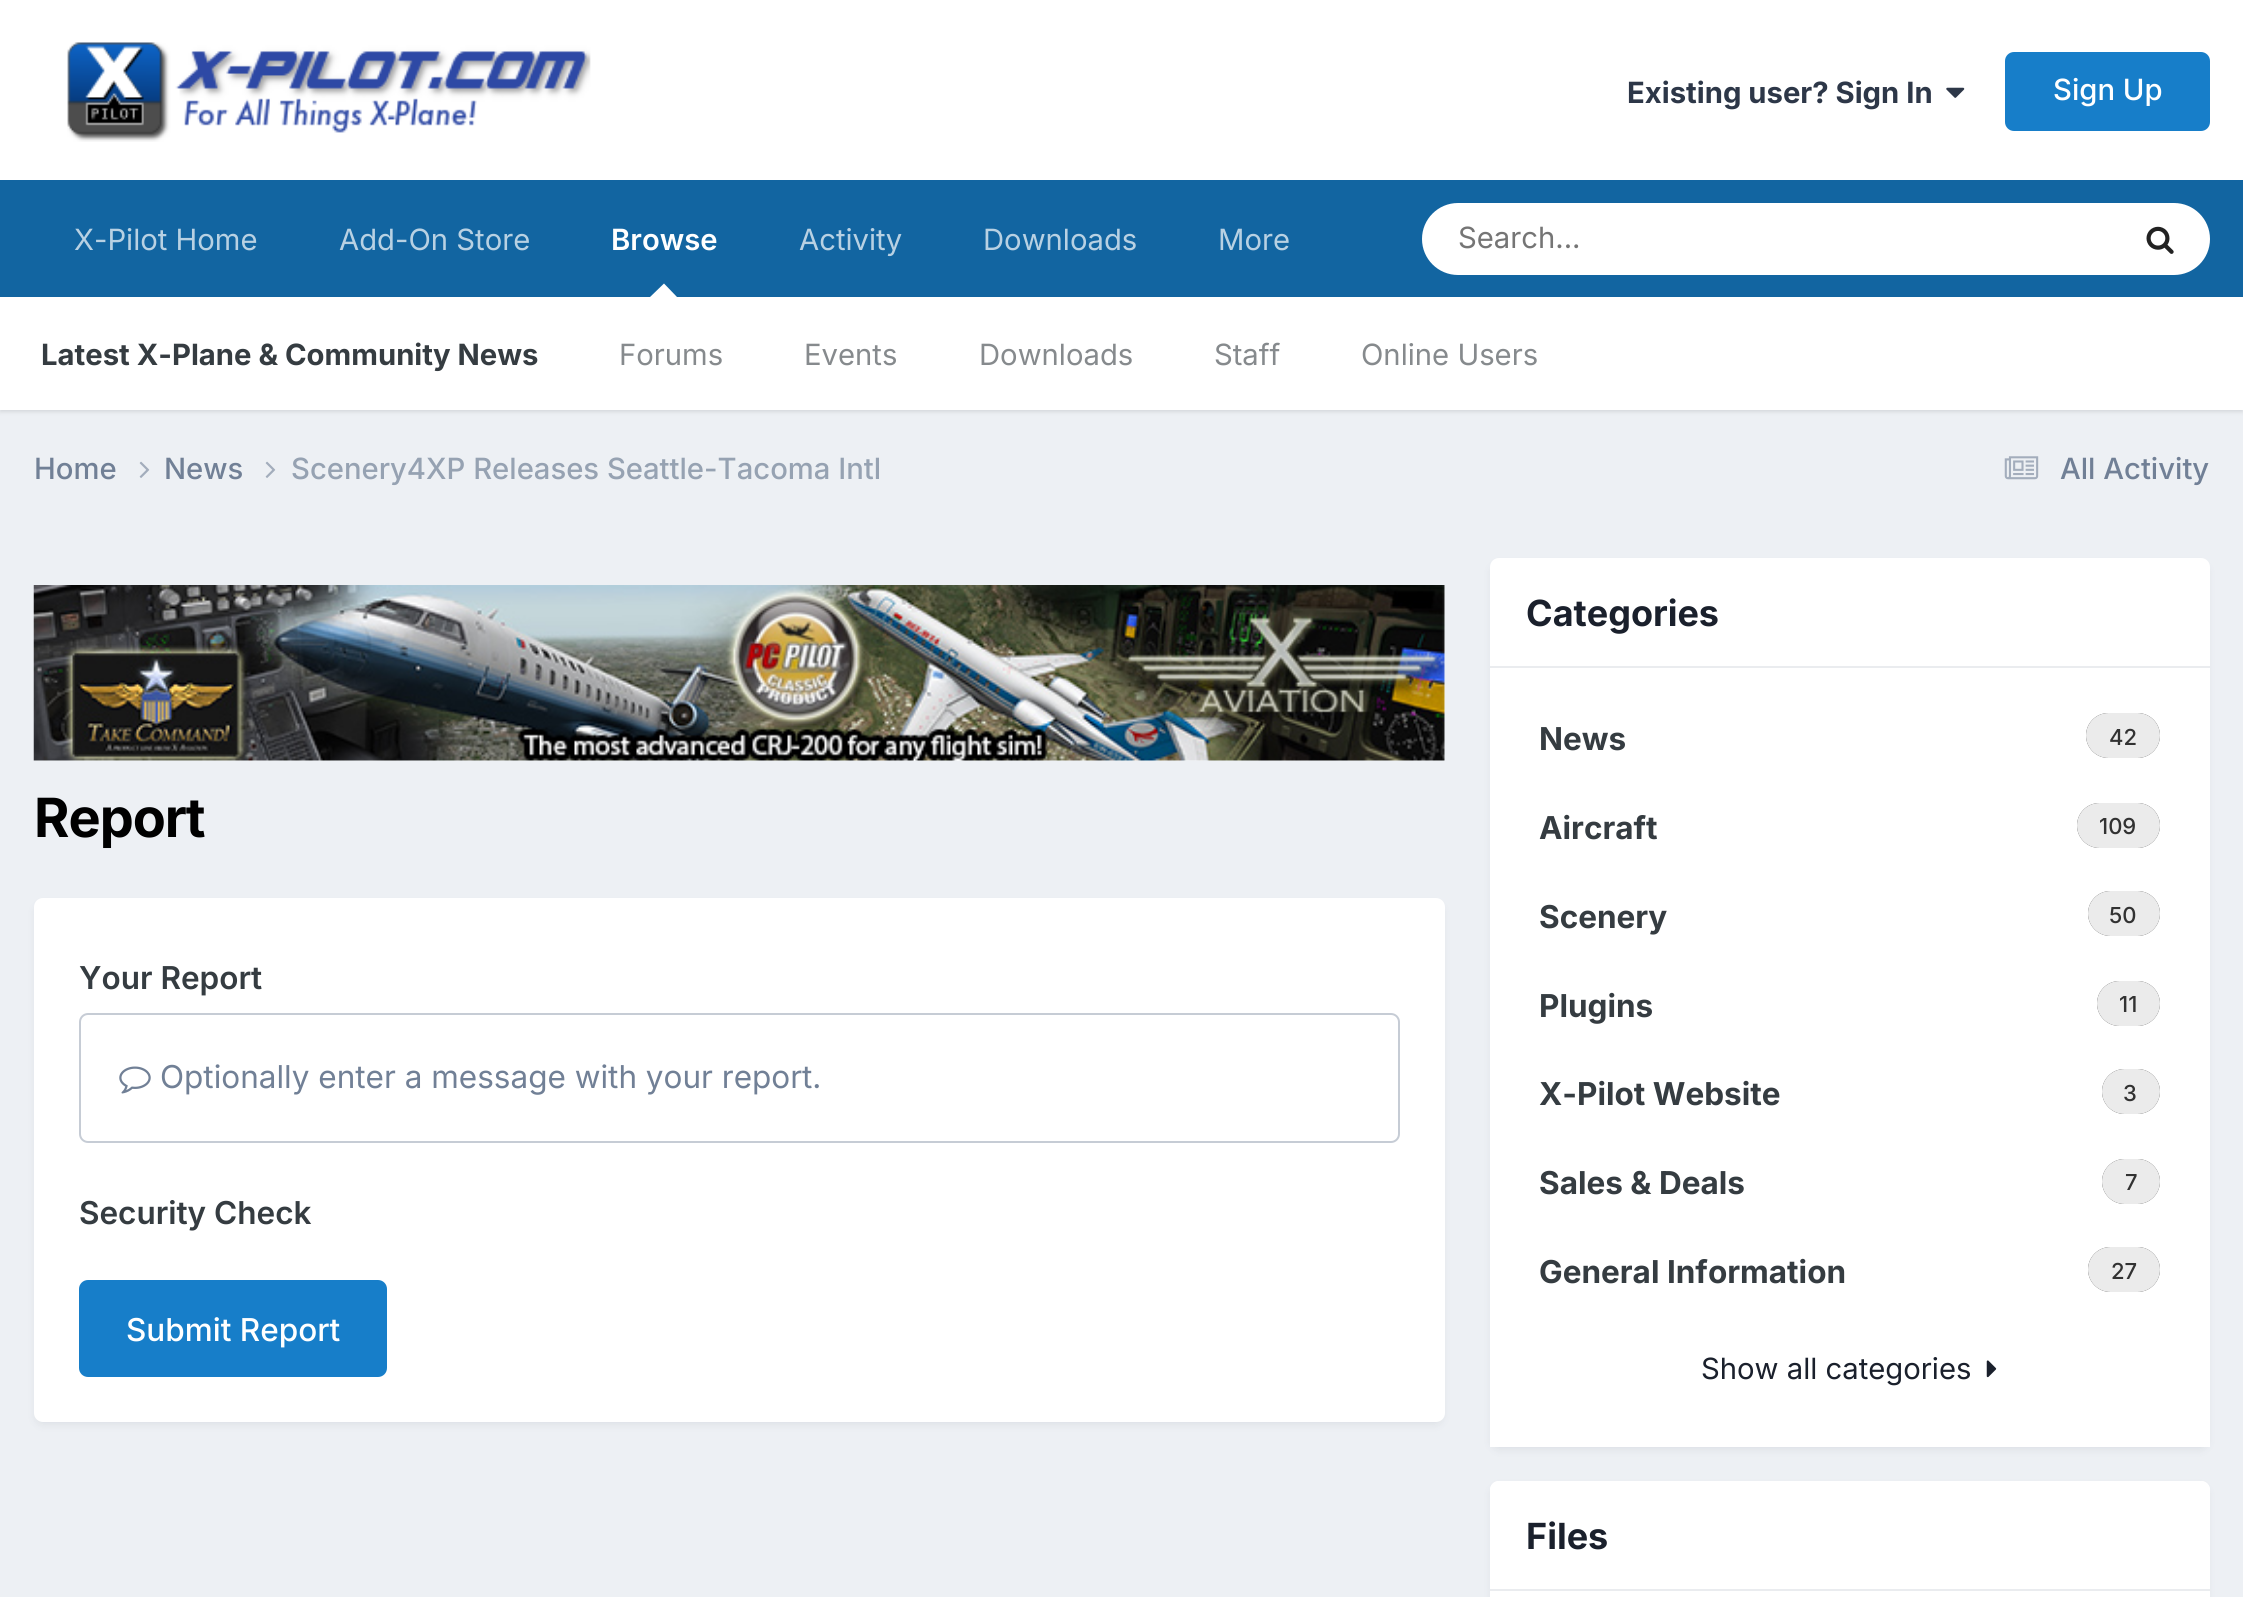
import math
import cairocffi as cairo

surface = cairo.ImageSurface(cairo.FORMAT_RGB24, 2243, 1597)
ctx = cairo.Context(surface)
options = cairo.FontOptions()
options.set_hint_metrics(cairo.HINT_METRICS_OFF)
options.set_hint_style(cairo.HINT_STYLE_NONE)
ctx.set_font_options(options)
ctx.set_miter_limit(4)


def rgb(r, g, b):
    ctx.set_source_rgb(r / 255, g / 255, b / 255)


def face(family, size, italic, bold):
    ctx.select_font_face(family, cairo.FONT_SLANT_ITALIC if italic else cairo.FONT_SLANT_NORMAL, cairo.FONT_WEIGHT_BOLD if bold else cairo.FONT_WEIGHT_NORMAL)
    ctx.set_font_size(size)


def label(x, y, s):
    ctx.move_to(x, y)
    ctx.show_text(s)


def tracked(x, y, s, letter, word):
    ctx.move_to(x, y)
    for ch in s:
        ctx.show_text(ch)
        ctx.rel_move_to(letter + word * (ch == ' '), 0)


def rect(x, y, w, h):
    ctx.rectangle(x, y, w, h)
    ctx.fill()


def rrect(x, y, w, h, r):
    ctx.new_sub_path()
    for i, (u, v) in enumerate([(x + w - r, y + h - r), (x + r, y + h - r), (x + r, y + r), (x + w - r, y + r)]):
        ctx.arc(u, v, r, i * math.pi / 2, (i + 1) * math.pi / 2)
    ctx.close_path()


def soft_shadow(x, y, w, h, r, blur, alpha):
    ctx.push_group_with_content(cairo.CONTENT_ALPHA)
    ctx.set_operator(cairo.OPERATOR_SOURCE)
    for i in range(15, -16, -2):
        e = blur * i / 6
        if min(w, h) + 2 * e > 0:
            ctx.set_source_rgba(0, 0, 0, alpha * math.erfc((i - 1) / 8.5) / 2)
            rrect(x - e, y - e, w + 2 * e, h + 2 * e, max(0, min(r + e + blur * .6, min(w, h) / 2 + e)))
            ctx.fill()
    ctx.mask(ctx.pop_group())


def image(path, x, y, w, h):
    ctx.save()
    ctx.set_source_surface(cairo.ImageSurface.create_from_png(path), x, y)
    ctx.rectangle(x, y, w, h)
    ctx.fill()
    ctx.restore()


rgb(237, 240, 244)
ctx.paint()
rgb(255, 255, 255)
rect(0, 0, 2243, 180)
image('image0.png', 67, 42, 524, 100)
face('Inter', 29.25, 0, 1)
rgb(45, 55, 72)
label(1627, 103, 'Existing user? Sign In')
image('image1.png', 1946, 87, 19, 11)
rgb(23, 126, 201)
rrect(2005, 52, 205, 79, 9)
ctx.fill()
face('Inter Medium', 29.25, 0, 0)
rgb(255, 255, 255)
label(2053, 100, 'Sign Up')
rgb(18, 101, 161)
rect(0, 180, 2243, 117)
rgb(255, 255, 255)
rrect(1422, 203, 788, 72, 36)
ctx.fill()
face('Inter', 29.25, 0, 0)
rgb(117, 117, 117)
label(1458, 248, 'Search...')
image('image2.png', 2146, 226, 28, 28)
face('Inter SemiBold', 29.25, 0, 0)
rgb(255, 255, 255)
label(611, 250, 'Browse')
rgb(0, 0, 0)
soft_shadow(0, 299, 2243, 113, 0, 2, 0.1)
rgb(255, 255, 255)
ctx.new_path()
ctx.move_to(677, 297)
ctx.line_to(650, 297)
ctx.line_to(664, 283.5)
ctx.close_path()
ctx.fill()
rect(0, 297, 2243, 113)
face('Inter', 29.25, 0, 1)
rgb(53, 60, 65)
label(41, 365, 'Latest X-Plane & Community News')
face('Inter', 29.25, 0, 0)
rgb(134, 138, 141)
label(619, 365, 'Forums')
label(804, 365, 'Events')
label(979, 365, 'Downloads')
label(1214, 365, 'Staff')
label(1361, 365, 'Online Users')
rgb(184, 209, 227)
label(74, 250, 'X-Pilot Home')
label(339, 250, 'Add-On Store')
label(799, 250, 'Activity')
label(983, 250, 'Downloads')
label(1218, 250, 'More')
face('Inter Medium', 29.25, 0, 0)
rgb(113, 128, 150)
label(34, 479, 'Home')
image('image3.png', 139, 461, 11, 17)
label(164, 479, 'News')
image('image3.png', 265, 461, 11, 17)
rgb(150, 162, 178)
label(291, 479, 'Scenery4XP Releases Seattle-Tacoma Intl')
image('image4.png', 2004, 456, 35, 24)
rgb(113, 128, 150)
label(2060, 479, 'All Activity')
rgb(247, 250, 252)
rect(34, 585, 1411, 176)
image('image5.png', 33, 585, 1412, 176)
face('Inter', 54, 0, 1)
rgb(0, 0, 0)
tracked(34, 837, 'Report', -1, 0)
rgb(45, 55, 72)
soft_shadow(36, 905, 1406, 519, 7, 4.5, 0.1)
rgb(255, 255, 255)
rrect(34, 898, 1411, 524, 9)
ctx.fill()
face('Inter SemiBold', 31.5, 0, 0)
rgb(53, 60, 65)
label(79, 989, 'Your Report')
rrect(80, 1014, 1319, 128, 8)
rgb(198, 204, 213)
ctx.stroke()
image('image6.png', 119, 1066, 32, 28)
face('Inter', 31.5, 0, 0)
rgb(113, 128, 150)
label(160, 1088, 'Optionally enter a message with your report.')
face('Inter SemiBold', 31.5, 0, 0)
rgb(53, 60, 65)
label(79, 1224, 'Security Check')
rgb(23, 126, 201)
rrect(79, 1280, 308, 97, 9)
ctx.fill()
face('Inter Medium', 31.5, 0, 0)
rgb(255, 255, 255)
label(126, 1341, 'Submit Report')
rgb(45, 55, 72)
soft_shadow(1492, 565, 715, 884, 7, 4.5, 0.1)
rgb(255, 255, 255)
ctx.new_path()
ctx.move_to(1499, 558)
ctx.line_to(2201, 558)
ctx.curve_to(2206, 558, 2210, 562, 2210, 567)
ctx.line_to(2210, 668)
ctx.line_to(1490, 668)
ctx.line_to(1490, 567)
ctx.curve_to(1490, 562, 1494, 558, 1499, 558)
ctx.close_path()
ctx.fill()
rgb(234, 236, 239)
rect(1490, 666, 720, 2)
face('Inter', 36, 0, 1)
rgb(26, 32, 44)
label(1526, 626, 'Categories')
rgb(255, 255, 255)
rect(1490, 668, 720, 779)
face('Inter', 31.5, 0, 1)
rgb(53, 60, 65)
label(1539, 750, 'News')
rgb(50, 50, 50)
rrect(2086, 713, 74, 45, 22.5)
ctx.fill()
ctx.set_source_rgba(1, 1, 1, 0.9)
rrect(2086, 713, 74, 45, 22.5)
ctx.fill()
face('Inter Medium', 22, 0, 0)
rgb(50, 50, 50)
label(2109, 745, '42')
face('Inter', 31.5, 0, 1)
rgb(53, 60, 65)
label(1539, 839, 'Aircraft')
rgb(50, 50, 50)
rrect(2077, 803, 83, 45, 22.5)
ctx.fill()
ctx.set_source_rgba(1, 1, 1, 0.9)
rrect(2077, 803, 83, 45, 22.5)
ctx.fill()
face('Inter Medium', 22, 0, 0)
rgb(50, 50, 50)
label(2099, 834, '109')
face('Inter', 31.5, 0, 1)
rgb(53, 60, 65)
label(1539, 928, 'Scenery')
rgb(50, 50, 50)
rrect(2088, 891, 72, 45, 22.5)
ctx.fill()
ctx.set_source_rgba(1, 1, 1, 0.9)
rrect(2088, 891, 72, 45, 22.5)
ctx.fill()
face('Inter Medium', 22, 0, 0)
rgb(50, 50, 50)
label(2109, 923, '50')
face('Inter', 31.5, 0, 1)
rgb(53, 60, 65)
label(1539, 1017, 'Plugins')
rgb(50, 50, 50)
rrect(2097, 981, 63, 45, 22.5)
ctx.fill()
ctx.set_source_rgba(1, 1, 1, 0.9)
rrect(2097, 981, 63, 45, 22.5)
ctx.fill()
face('Inter Medium', 22, 0, 0)
rgb(50, 50, 50)
label(2119, 1012, '11')
face('Inter', 31.5, 0, 1)
rgb(53, 60, 65)
label(1539, 1105, 'X-Pilot Website')
rgb(50, 50, 50)
rrect(2102, 1069, 58, 45, 22.5)
ctx.fill()
ctx.set_source_rgba(1, 1, 1, 0.9)
rrect(2102, 1069, 58, 45, 22.5)
ctx.fill()
face('Inter Medium', 22, 0, 0)
rgb(50, 50, 50)
label(2123, 1101, '3')
face('Inter', 31.5, 0, 1)
rgb(53, 60, 65)
label(1539, 1194, 'Sales & Deals')
rgb(50, 50, 50)
rrect(2102, 1159, 58, 45, 22.5)
ctx.fill()
ctx.set_source_rgba(1, 1, 1, 0.9)
rrect(2102, 1159, 58, 45, 22.5)
ctx.fill()
face('Inter Medium', 22, 0, 0)
rgb(50, 50, 50)
label(2125, 1190, '7')
face('Inter', 31.5, 0, 1)
rgb(53, 60, 65)
label(1539, 1283, 'General Information')
rgb(50, 50, 50)
rrect(2088, 1247, 72, 45, 22.5)
ctx.fill()
ctx.set_source_rgba(1, 1, 1, 0.9)
rrect(2088, 1247, 72, 45, 22.5)
ctx.fill()
face('Inter Medium', 22, 0, 0)
rgb(50, 50, 50)
label(2111, 1279, '27')
face('Inter', 29.25, 0, 0)
rgb(26, 32, 44)
label(1701, 1379, 'Show all categories')
image('image7.png', 1986, 1360, 11, 18)
rgb(45, 55, 72)
soft_shadow(1492, 1487, 715, 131, 7, 4.5, 0.1)
rgb(255, 255, 255)
rrect(1490, 1481, 720, 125, 9)
ctx.fill()
ctx.new_path()
ctx.move_to(1499, 1481)
ctx.line_to(2201, 1481)
ctx.curve_to(2206, 1481, 2210, 1485, 2210, 1490)
ctx.line_to(2210, 1591)
ctx.line_to(1490, 1591)
ctx.line_to(1490, 1490)
ctx.curve_to(1490, 1485, 1494, 1481, 1499, 1481)
ctx.close_path()
ctx.fill()
rgb(234, 236, 239)
rect(1490, 1589, 720, 2)
face('Inter', 36, 0, 1)
rgb(26, 32, 44)
label(1526, 1549, 'Files')
surface.write_to_png('render.png')
